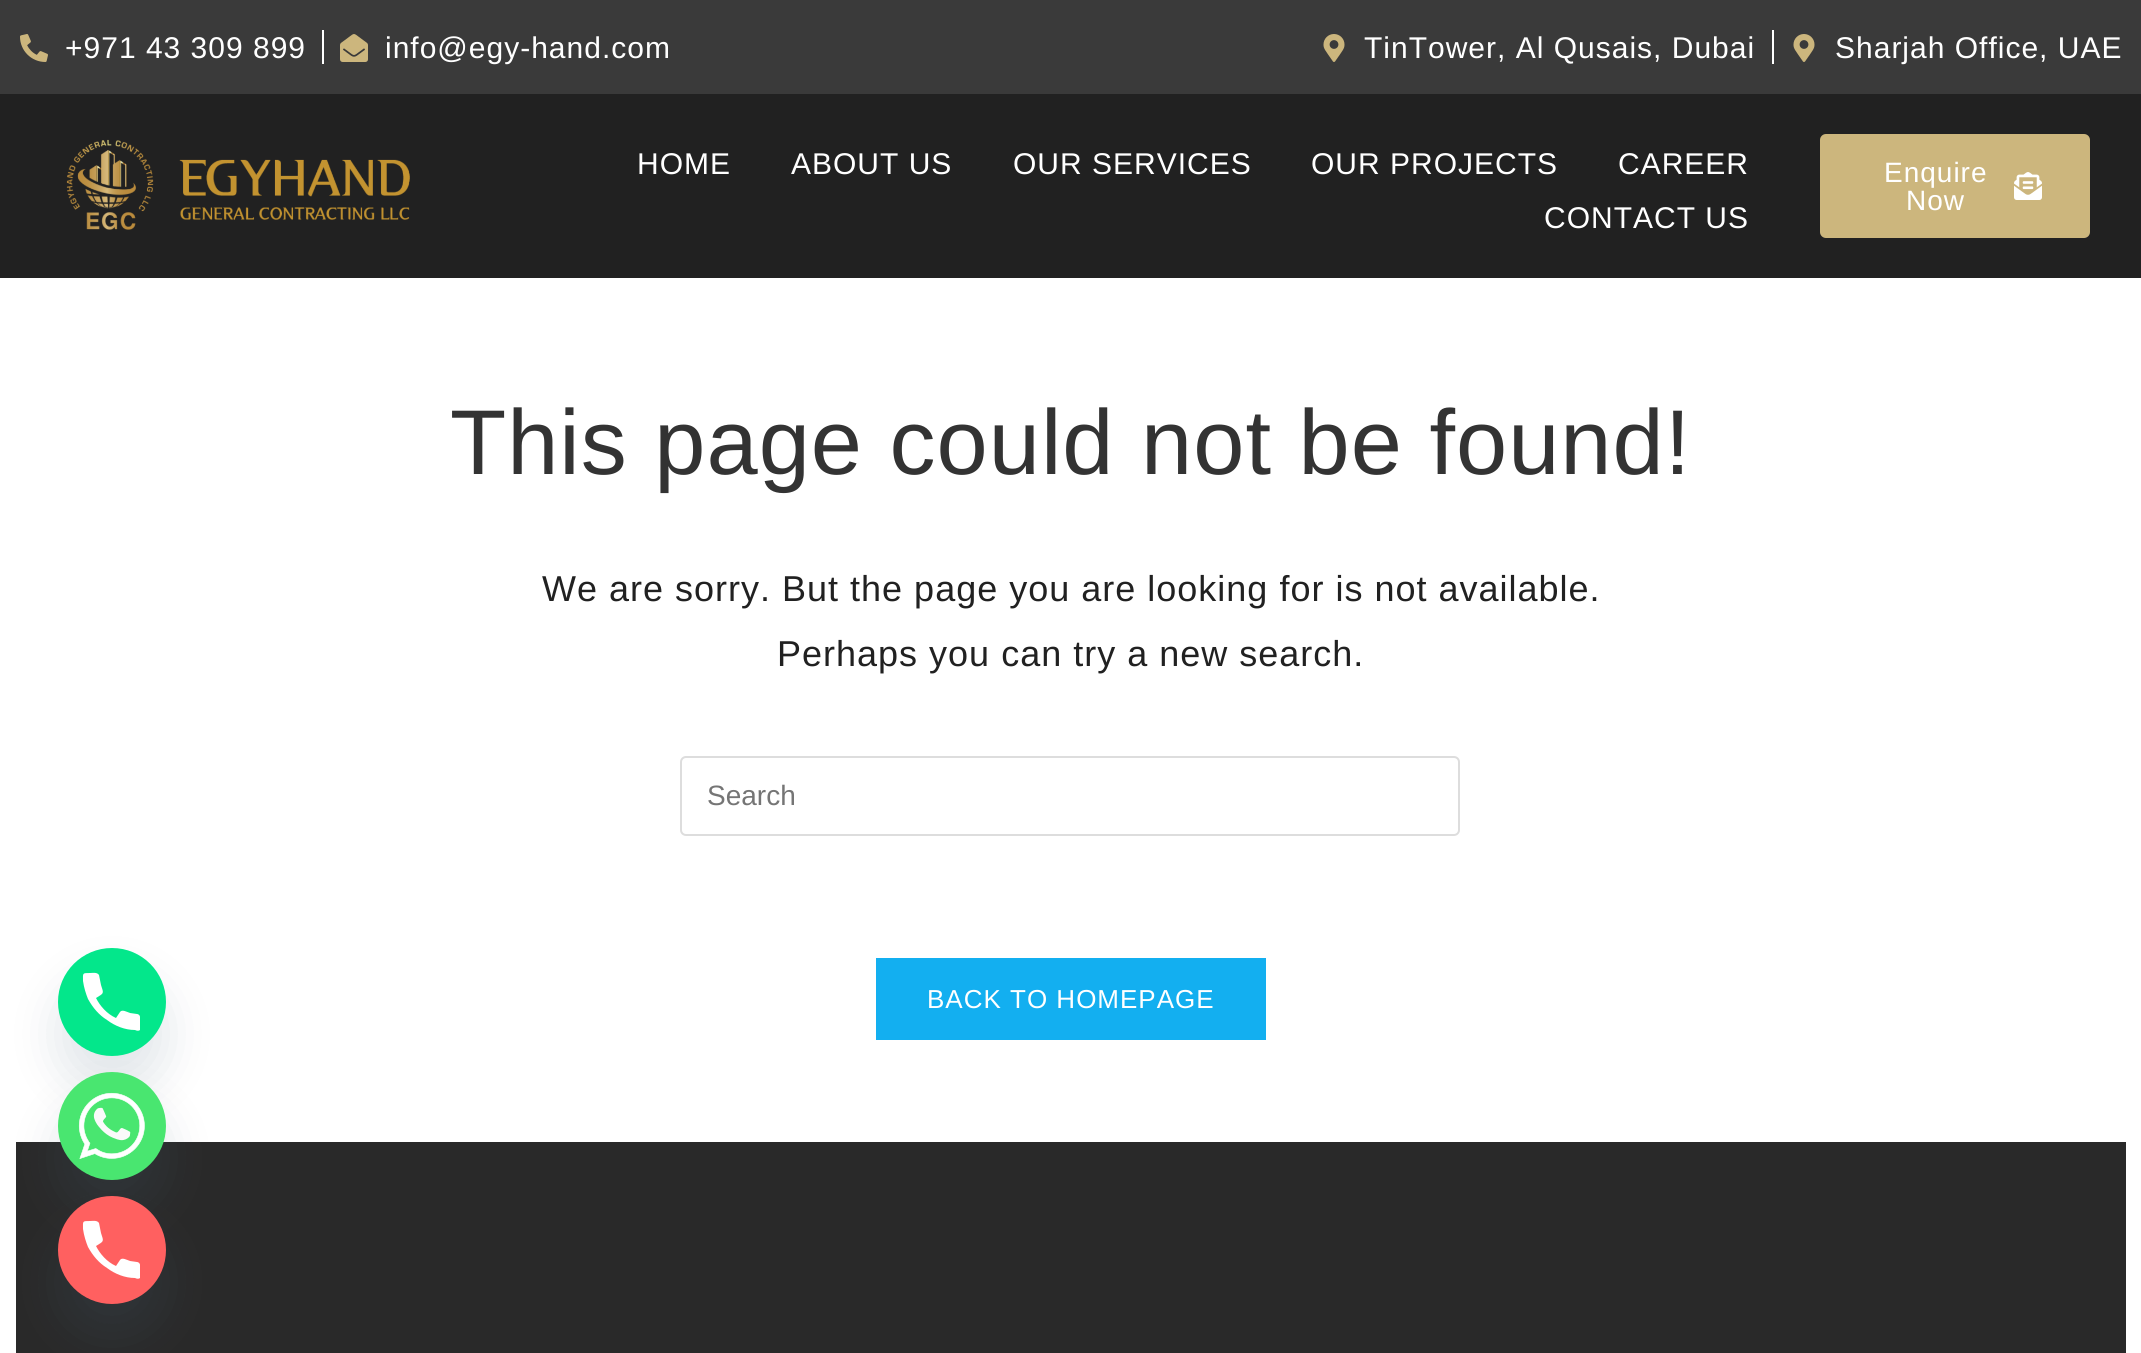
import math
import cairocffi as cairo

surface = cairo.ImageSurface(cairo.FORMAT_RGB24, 2141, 1353)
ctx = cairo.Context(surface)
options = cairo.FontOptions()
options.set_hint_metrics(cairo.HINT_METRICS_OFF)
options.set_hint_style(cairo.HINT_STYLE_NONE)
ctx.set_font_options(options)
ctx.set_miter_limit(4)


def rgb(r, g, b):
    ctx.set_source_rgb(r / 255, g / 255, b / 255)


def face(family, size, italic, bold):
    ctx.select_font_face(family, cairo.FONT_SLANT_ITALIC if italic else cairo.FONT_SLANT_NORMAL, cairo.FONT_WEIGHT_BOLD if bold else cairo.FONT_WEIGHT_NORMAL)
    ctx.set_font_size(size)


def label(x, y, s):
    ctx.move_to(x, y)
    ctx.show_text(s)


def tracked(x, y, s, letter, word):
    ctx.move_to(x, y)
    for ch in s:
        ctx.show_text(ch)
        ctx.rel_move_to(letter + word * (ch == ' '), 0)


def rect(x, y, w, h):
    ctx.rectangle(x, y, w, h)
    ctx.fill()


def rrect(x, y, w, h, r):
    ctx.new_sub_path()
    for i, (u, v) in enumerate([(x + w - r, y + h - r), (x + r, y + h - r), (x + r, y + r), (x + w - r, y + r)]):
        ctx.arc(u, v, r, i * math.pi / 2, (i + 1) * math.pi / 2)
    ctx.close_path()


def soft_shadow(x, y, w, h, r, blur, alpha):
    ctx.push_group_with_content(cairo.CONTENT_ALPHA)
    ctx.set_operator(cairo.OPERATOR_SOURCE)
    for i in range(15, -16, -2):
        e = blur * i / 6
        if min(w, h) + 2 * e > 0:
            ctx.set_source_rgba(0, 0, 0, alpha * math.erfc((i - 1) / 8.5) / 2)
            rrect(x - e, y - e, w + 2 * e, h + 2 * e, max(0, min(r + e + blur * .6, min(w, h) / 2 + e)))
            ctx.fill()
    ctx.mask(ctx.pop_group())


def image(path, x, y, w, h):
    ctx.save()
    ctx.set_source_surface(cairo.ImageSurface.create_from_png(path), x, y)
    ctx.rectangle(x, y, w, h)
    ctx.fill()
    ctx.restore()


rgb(255, 255, 255)
ctx.paint()
rgb(58, 58, 58)
rect(0, 0, 2141, 94)
image('image0.png', 20, 34, 28, 28)
face('Liberation Sans', 30, 0, 0)
rgb(255, 255, 255)
tracked(65, 58, '+971 43 309 899', 1, 0)
rect(322, 30, 2, 34)
image('image1.png', 340, 34, 28, 28)
tracked(385, 58, 'info@egy-hand.com', 1, 0)
image('image2.png', 1323, 34, 22, 28)
tracked(1364, 58, 'TinTower, Al Qusais, Dubai', 1, 0)
rect(1772, 30, 2, 34)
image('image2.png', 1793, 34, 22, 28)
tracked(1835, 58, 'Sharjah Office, UAE', 1, 0)
rgb(33, 33, 33)
rect(0, 94, 2141, 184)
image('image3.png', 66, 139, 344, 91)
rgb(255, 255, 255)
tracked(637, 174, 'HOME', 1, 0)
tracked(791, 174, 'ABOUT US', 1, 0)
tracked(1013, 174, 'OUR SERVICES', 1, 0)
tracked(1311, 174, 'OUR PROJECTS', 1, 0)
tracked(1618, 174, 'CAREER', 1, 0)
tracked(1544, 228, 'CONTACT US', 1, 0)
rgb(204, 182, 125)
rrect(1820, 134, 270, 104, 6)
ctx.fill()
face('Liberation Sans', 28, 0, 0)
rgb(255, 255, 255)
tracked(1884, 182, 'Enquire', 1, 0)
tracked(1906, 210, 'Now', 1, 0)
image('image4.png', 2014, 172, 28, 28)
face('Liberation Sans', 92, 0, 0)
rgb(51, 51, 51)
tracked(450, 474, 'This page could not be found!', 1, 0)
face('Liberation Sans', 36, 0, 0)
rgb(33, 33, 33)
tracked(542, 601, 'We are sorry. But the page you are looking for is not available.', 1, 0)
tracked(777, 666, 'Perhaps you can try a new search.', 1, 0)
rrect(681, 757, 778, 78, 5)
rgb(221, 221, 221)
ctx.stroke()
face('Liberation Sans', 28, 0, 0)
rgb(117, 117, 117)
label(707, 805, 'Search')
rgb(19, 175, 240)
rect(876, 958, 390, 82)
face('Liberation Sans', 26, 0, 0)
rgb(255, 255, 255)
tracked(927, 1008, 'BACK TO HOMEPAGE', 1, 0)
rgb(41, 41, 41)
rect(16, 1142, 2110, 211)
rgb(73, 104, 126)
soft_shadow(58, 980, 108, 108, 54, 24, 0.16)
rgb(3, 231, 139)
ctx.arc(112, 1002, 54, 0, 2 * math.pi)
ctx.fill()
rgb(255, 255, 255)
ctx.new_path()
ctx.move_to(137, 1014)
ctx.line_to(130, 1013)
ctx.curve_to(127, 1012, 122, 1009, 120, 1012)
ctx.line_to(116, 1018)
ctx.curve_to(107, 1014, 100, 1006, 96, 998)
ctx.curve_to(104, 993, 104, 994, 101, 985)
ctx.line_to(99, 975)
ctx.curve_to(97, 972, 93, 973, 90, 973)
ctx.curve_to(82, 973, 83, 973, 83, 981)
ctx.curve_to(84, 988, 86, 994, 88, 999)
ctx.curve_to(93, 1008, 99, 1015, 107, 1020)
ctx.curve_to(115, 1026, 125, 1030, 135, 1030)
ctx.curve_to(137, 1031, 139, 1031, 140, 1030)
ctx.line_to(140, 1017)
ctx.curve_to(140, 1015, 138, 1014, 137, 1014)
ctx.close_path()
ctx.fill()
rgb(73, 104, 126)
soft_shadow(58, 1104, 108, 108, 54, 24, 0.16)
image('image5.png', 58, 1072, 108, 108)
soft_shadow(58, 1228, 108, 108, 54, 24, 0.16)
rgb(255, 96, 96)
ctx.arc(112, 1250, 54, 0, 2 * math.pi)
ctx.fill()
rgb(255, 255, 255)
ctx.new_path()
ctx.move_to(137, 1262)
ctx.line_to(130, 1261)
ctx.curve_to(127, 1260, 122, 1257, 120, 1260)
ctx.line_to(116, 1266)
ctx.curve_to(107, 1262, 100, 1254, 96, 1246)
ctx.curve_to(104, 1241, 104, 1242, 101, 1233)
ctx.line_to(99, 1223)
ctx.curve_to(97, 1220, 93, 1221, 90, 1221)
ctx.curve_to(82, 1221, 83, 1221, 83, 1229)
ctx.curve_to(84, 1236, 86, 1242, 88, 1247)
ctx.curve_to(93, 1256, 99, 1263, 107, 1268)
ctx.curve_to(115, 1274, 125, 1278, 135, 1278)
ctx.curve_to(137, 1279, 139, 1279, 140, 1278)
ctx.line_to(140, 1265)
ctx.curve_to(140, 1263, 138, 1262, 137, 1262)
ctx.close_path()
ctx.fill()
surface.write_to_png('render.png')
